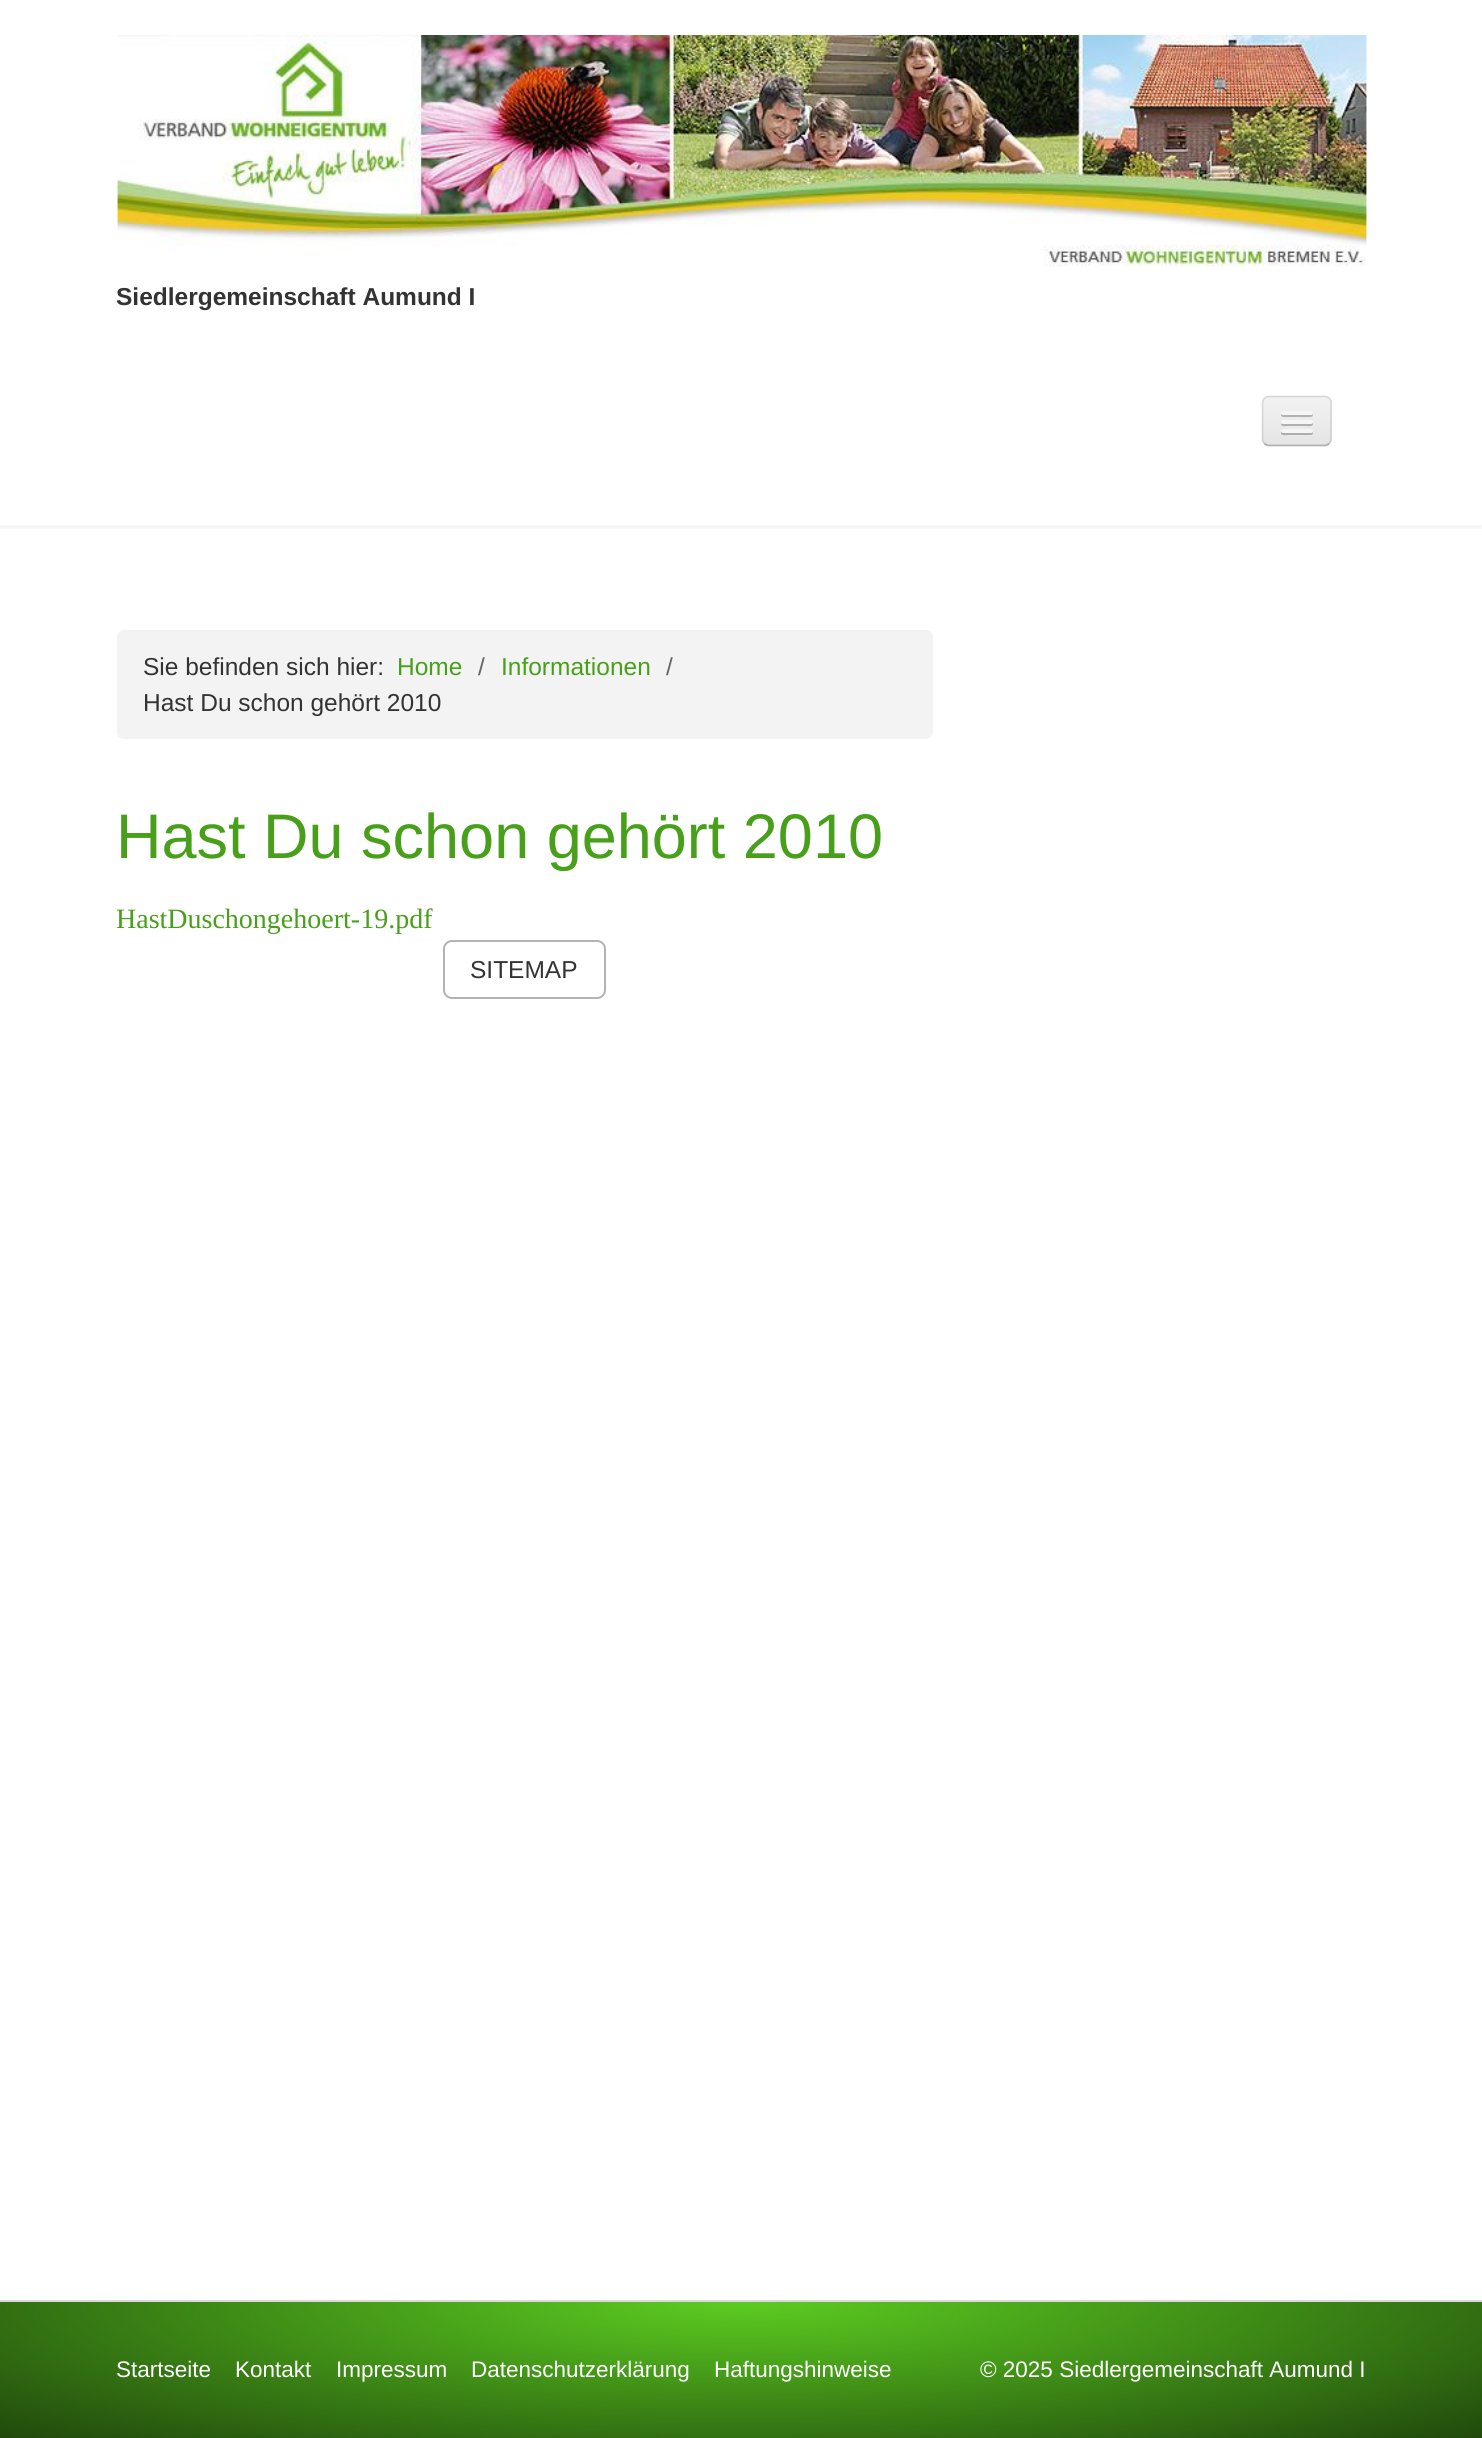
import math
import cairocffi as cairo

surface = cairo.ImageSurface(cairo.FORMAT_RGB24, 1482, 2438)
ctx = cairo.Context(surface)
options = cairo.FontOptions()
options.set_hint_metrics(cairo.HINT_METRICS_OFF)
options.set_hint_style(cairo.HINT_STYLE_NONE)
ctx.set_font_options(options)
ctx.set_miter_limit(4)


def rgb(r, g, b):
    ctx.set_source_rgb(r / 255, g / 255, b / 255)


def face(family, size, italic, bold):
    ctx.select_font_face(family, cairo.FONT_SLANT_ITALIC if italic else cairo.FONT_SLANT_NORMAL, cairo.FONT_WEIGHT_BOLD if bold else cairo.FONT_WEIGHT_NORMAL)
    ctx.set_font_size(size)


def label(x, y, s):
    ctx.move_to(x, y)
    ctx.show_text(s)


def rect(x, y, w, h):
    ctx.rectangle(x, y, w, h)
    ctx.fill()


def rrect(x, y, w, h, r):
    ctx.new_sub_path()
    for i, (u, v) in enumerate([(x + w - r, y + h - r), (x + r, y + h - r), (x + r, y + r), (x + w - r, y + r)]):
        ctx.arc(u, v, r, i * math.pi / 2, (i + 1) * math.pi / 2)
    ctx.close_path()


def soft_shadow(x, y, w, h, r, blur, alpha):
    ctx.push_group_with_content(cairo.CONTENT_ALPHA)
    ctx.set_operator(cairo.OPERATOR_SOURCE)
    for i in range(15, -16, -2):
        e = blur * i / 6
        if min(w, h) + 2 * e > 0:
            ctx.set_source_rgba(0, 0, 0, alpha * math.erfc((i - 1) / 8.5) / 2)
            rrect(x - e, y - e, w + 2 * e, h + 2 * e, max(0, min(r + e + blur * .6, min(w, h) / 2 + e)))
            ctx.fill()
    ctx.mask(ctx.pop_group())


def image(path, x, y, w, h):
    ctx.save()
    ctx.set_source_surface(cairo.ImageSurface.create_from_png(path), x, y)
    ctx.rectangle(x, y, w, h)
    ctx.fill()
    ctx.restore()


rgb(255, 255, 255)
ctx.paint()
ctx.save()
ctx.rectangle(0, 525, 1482, 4)
ctx.clip()
rgb(0, 0, 0)
soft_shadow(0, 2, 1482, 525, 0, 3.5, 0.07)
ctx.restore()
image('image0.png', 117, 35, 1250, 233)
face('Liberation Sans', 24.5, 0, 1)
rgb(51, 51, 51)
label(116, 305, 'Siedlergemeinschaft Aumund I')
rgb(237, 237, 237)
rrect(1262, 396, 70, 50, 7)
ctx.fill()
ctx.save()
rrect(1262, 396, 70, 50, 7)
ctx.clip()
gradient = cairo.LinearGradient(1297, 397, 1297, 445)
gradient.add_color_stop_rgba(0, 0.949, 0.949, 0.949, 1)
gradient.add_color_stop_rgba(1, 0.898, 0.898, 0.898, 1)
ctx.set_source(gradient)
rect(1262, 397, 70, 48)
ctx.restore()
ctx.new_path()
ctx.move_to(1329, 443.5)
ctx.curve_to(1328, 444.5, 1326.5, 445.5, 1325, 445.5)
ctx.line_to(1269, 445.5)
ctx.curve_to(1267, 445.5, 1265.5, 444.5, 1264.5, 443.5)
ctx.set_source_rgba(0, 0, 0, 0.25)
ctx.set_line_width(1.8)
ctx.stroke()
ctx.new_path()
ctx.move_to(1264.5, 443.5)
ctx.curve_to(1263.5, 442.5, 1262.5, 441, 1262.5, 439)
ctx.line_to(1262.5, 402.5)
ctx.curve_to(1262.5, 401, 1263.5, 399.5, 1264.5, 398)
ctx.curve_to(1265.5, 397, 1267, 396.5, 1269, 396.5)
ctx.line_to(1325, 396.5)
ctx.curve_to(1326.5, 396.5, 1328, 397, 1329, 398)
ctx.curve_to(1330, 399.5, 1331, 401, 1331, 402.5)
ctx.line_to(1331, 439)
ctx.curve_to(1331, 441, 1330, 442.5, 1329, 443.5)
ctx.set_source_rgba(0, 0, 0, 0.1)
ctx.stroke()
rgb(178, 178, 178)
ctx.new_path()
ctx.move_to(1281.5, 414)
ctx.curve_to(1279, 418, 1287, 417, 1287.5, 417)
ctx.line_to(1297, 417)
ctx.curve_to(1299.5, 417, 1311, 417.5, 1312.5, 416.5)
ctx.curve_to(1313, 415.5, 1313, 414.5, 1312.5, 413.5)
ctx.line_to(1311.5, 414.5)
ctx.line_to(1282.5, 414.5)
ctx.close_path()
ctx.fill()
rgb(245, 245, 245)
rrect(1281, 411, 32, 4, 2)
ctx.fill()
rgb(176, 176, 176)
ctx.new_path()
ctx.move_to(1281.5, 423)
ctx.line_to(1281, 424.5)
ctx.curve_to(1281.5, 427, 1286.5, 426, 1287.5, 426)
ctx.line_to(1306.5, 426)
ctx.curve_to(1308, 426, 1313, 427, 1313, 424)
ctx.line_to(1312.5, 422.5)
ctx.curve_to(1312, 423, 1311.5, 423.5, 1311, 423.5)
ctx.line_to(1282.5, 423.5)
ctx.close_path()
ctx.fill()
rgb(245, 245, 245)
rrect(1281, 420, 32, 4, 2)
ctx.fill()
rgb(174, 174, 174)
ctx.new_path()
ctx.move_to(1281.5, 431.5)
ctx.curve_to(1281, 432, 1281, 433, 1281, 433.5)
ctx.curve_to(1281.5, 436, 1286.5, 435, 1287.5, 435)
ctx.line_to(1311, 435)
ctx.curve_to(1313, 435, 1313.5, 432.5, 1312, 431.5)
ctx.line_to(1311, 432)
ctx.line_to(1282.5, 432)
ctx.close_path()
ctx.fill()
rgb(245, 245, 245)
rrect(1281, 429, 32, 4, 2)
ctx.fill()
rgb(243, 243, 243)
rrect(117, 630, 816, 109, 7)
ctx.fill()
face('Liberation Sans', 24.5, 0, 0)
rgb(51, 51, 51)
label(143, 675, 'Sie befinden sich hier:')
rgb(72, 160, 26)
label(397, 675, 'Home')
rgb(102, 102, 102)
label(478, 675, '/')
rgb(72, 160, 26)
label(501, 675, 'Informationen')
rgb(102, 102, 102)
label(666, 675, '/')
rgb(51, 51, 51)
label(143, 711, 'Hast Du schon gehört 2010')
face('Liberation Sans', 63, 0, 0)
rgb(72, 160, 26)
label(116, 858, 'Hast Du schon gehört 2010')
face('Liberation Serif', 28, 0, 0)
label(116, 928, 'HastDuschongehoert-19.pdf')
rrect(444, 941, 161, 57, 8)
rgb(179, 179, 179)
ctx.set_line_width(2)
ctx.stroke()
face('Liberation Sans', 24.5, 0, 0)
rgb(51, 51, 51)
label(470, 978, 'SITEMAP')
gradient = cairo.RadialGradient(0, 0, 0, 0, 0, 1)
gradient.set_matrix(cairo.Matrix(1 / 1048, 0, 0, 1 / 196, -1 * 741 / 1048, -1 * 2301 / 196))
gradient.add_color_stop_rgba(0, 0.361, 0.804, 0.129, 1)
gradient.add_color_stop_rgba(1, 0.129, 0.286, 0.047, 1)
ctx.set_source(gradient)
rect(0, 2302, 1482, 136)
rgb(217, 217, 217)
rect(0, 2300, 1482, 2)
face('Liberation Sans', 22.5, 0, 0)
rgb(255, 255, 255)
label(116, 2377, 'Startseite')
label(235, 2377, 'Kontakt')
label(336, 2377, 'Impressum')
label(471, 2377, 'Datenschutzerklärung')
label(714, 2377, 'Haftungshinweise')
label(980, 2377, '© 2025 Siedlergemeinschaft Aumund I')
surface.write_to_png('render.png')
